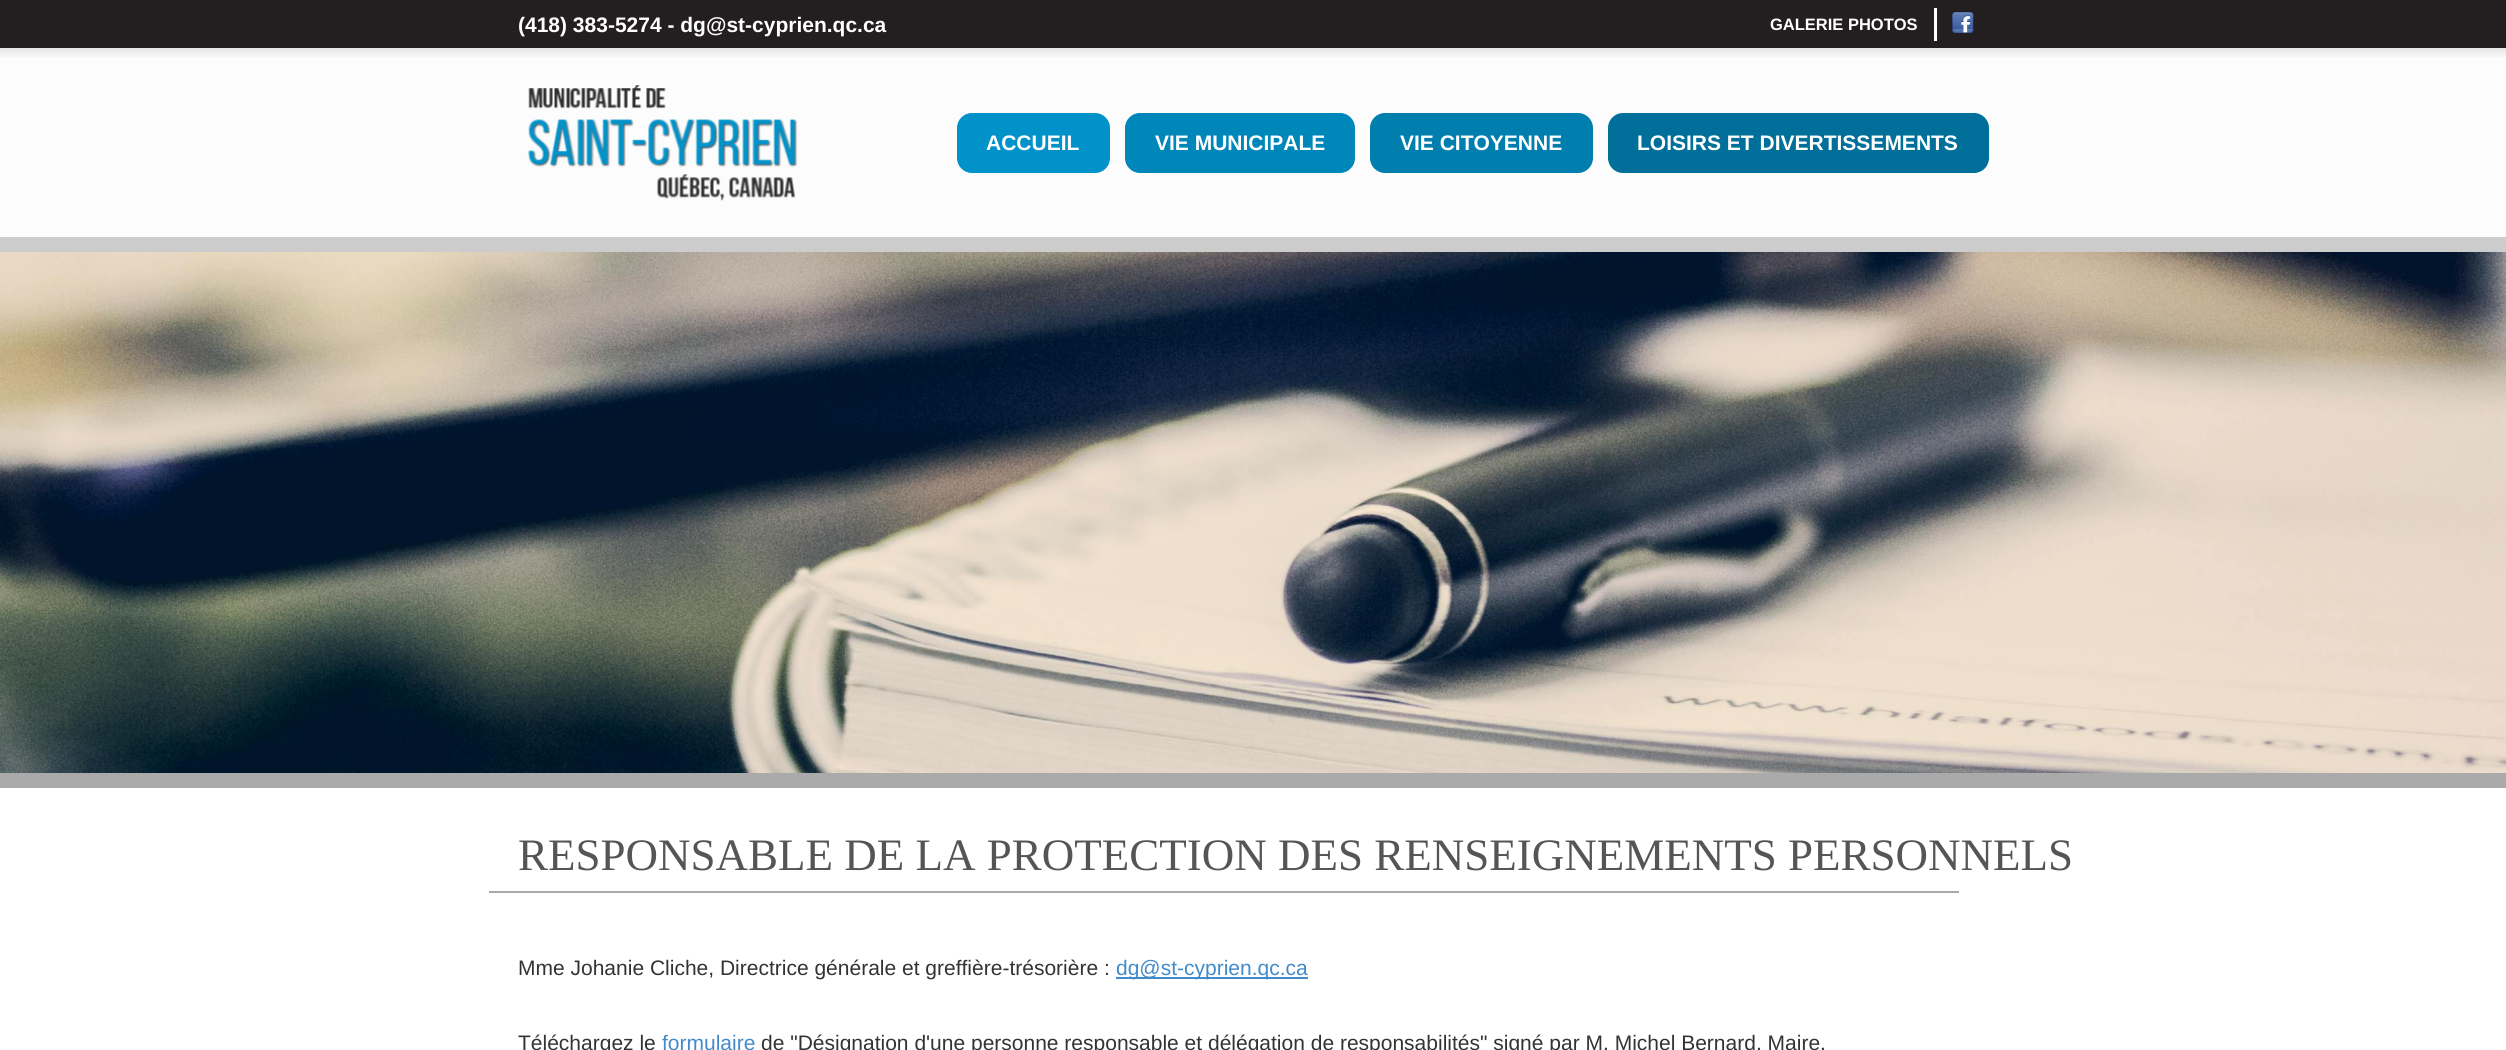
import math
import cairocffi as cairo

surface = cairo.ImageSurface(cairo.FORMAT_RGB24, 2506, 1050)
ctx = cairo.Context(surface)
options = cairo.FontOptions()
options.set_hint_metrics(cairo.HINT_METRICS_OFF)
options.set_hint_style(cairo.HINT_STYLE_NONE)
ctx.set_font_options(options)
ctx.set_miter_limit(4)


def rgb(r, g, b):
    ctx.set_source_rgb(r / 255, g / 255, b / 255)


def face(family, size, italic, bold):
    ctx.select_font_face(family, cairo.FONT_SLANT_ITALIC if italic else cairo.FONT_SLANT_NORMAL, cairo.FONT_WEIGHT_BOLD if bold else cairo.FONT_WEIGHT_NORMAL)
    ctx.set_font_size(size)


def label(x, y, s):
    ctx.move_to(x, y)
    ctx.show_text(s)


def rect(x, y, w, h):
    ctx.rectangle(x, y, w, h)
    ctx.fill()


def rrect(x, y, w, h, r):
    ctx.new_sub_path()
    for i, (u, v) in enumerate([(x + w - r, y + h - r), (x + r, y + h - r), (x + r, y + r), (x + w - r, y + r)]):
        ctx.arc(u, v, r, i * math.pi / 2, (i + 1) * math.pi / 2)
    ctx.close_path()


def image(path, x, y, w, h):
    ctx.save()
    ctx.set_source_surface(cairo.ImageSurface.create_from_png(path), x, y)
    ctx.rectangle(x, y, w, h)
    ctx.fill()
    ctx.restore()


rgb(255, 255, 255)
ctx.paint()
rgb(35, 31, 32)
rect(0, 0, 2506, 48)
face('Liberation Sans', 21, 0, 1)
rgb(255, 255, 255)
label(518, 32, '(418) 383-5274 - dg@st-cyprien.qc.ca')
face('Liberation Sans', 16.5, 0, 1)
label(1770, 30, 'GALERIE PHOTOS')
rect(1934, 8, 3, 33)
image('image0.png', 1952, 12, 22, 21)
rgb(252, 252, 252)
rect(0, 48, 2506, 189)
image('image1.png', 0, 48, 2506, 9)
rgb(204, 204, 204)
rect(0, 237, 2506, 15)
image('image2.png', 527, 85, 271, 116)
rgb(0, 146, 200)
rrect(957, 113, 153, 60, 15)
ctx.fill()
face('Liberation Sans', 21, 0, 1)
rgb(255, 255, 255)
label(986, 150, 'ACCUEIL')
rgb(0, 135, 186)
rrect(1125, 113, 230, 60, 15)
ctx.fill()
rgb(255, 255, 255)
label(1155, 150, 'VIE MUNICIPALE')
rgb(0, 127, 175)
rrect(1370, 113, 223, 60, 15)
ctx.fill()
rgb(255, 255, 255)
label(1400, 150, 'VIE CITOYENNE')
rgb(0, 111, 153)
rrect(1608, 113, 381, 60, 15)
ctx.fill()
rgb(255, 255, 255)
label(1637, 150, 'LOISIRS ET DIVERTISSEMENTS')
image('image3.png', 0, 252, 2506, 521)
rgb(170, 170, 170)
rect(0, 773, 2506, 15)
rect(489, 891, 1470, 2)
face('Liberation Serif', 45, 0, 0)
rgb(85, 85, 85)
label(518, 870, 'RESPONSABLE DE LA PROTECTION DES RENSEIGNEMENTS PERSONNELS')
face('Liberation Sans', 21, 0, 0)
rgb(51, 51, 51)
label(518, 975, 'Mme Johanie Cliche, Directrice générale et greffière-trésorière :')
rgb(66, 139, 202)
rect(1116, 977, 192, 2)
label(1116, 975, 'dg@st-cyprien.qc.ca')
rgb(51, 51, 51)
label(518, 1050, 'Téléchargez le')
rgb(66, 139, 202)
label(662, 1050, 'formulaire')
rgb(51, 51, 51)
label(761, 1050, 'de "Désignation d\'une personne responsable et délégation de responsabilités" signé par M. Michel Bernard, Maire.')
surface.write_to_png('render.png')
